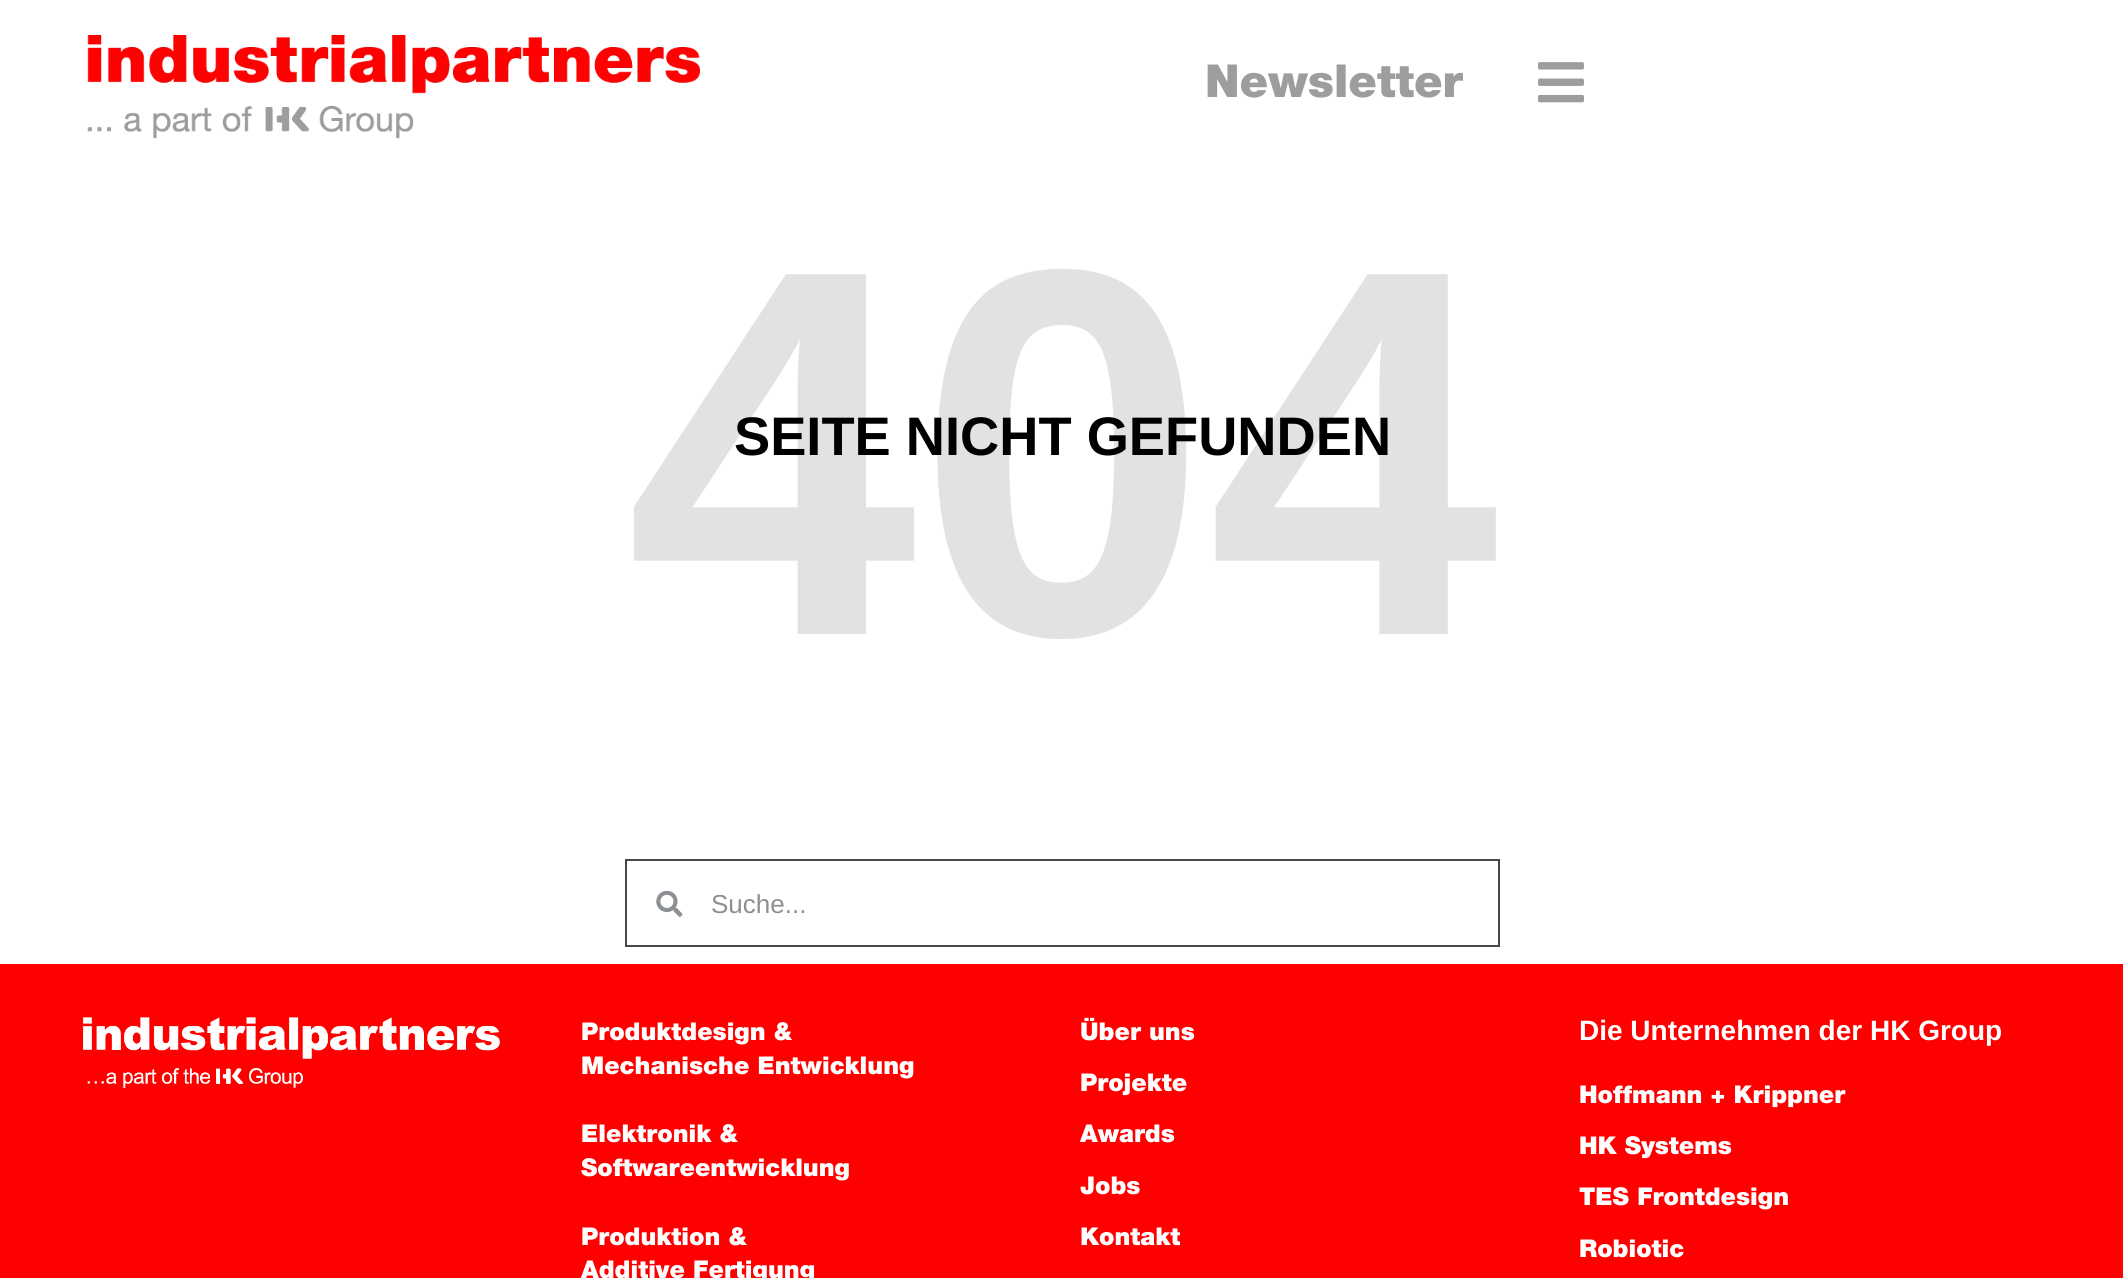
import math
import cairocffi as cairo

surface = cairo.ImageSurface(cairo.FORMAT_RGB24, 2123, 1278)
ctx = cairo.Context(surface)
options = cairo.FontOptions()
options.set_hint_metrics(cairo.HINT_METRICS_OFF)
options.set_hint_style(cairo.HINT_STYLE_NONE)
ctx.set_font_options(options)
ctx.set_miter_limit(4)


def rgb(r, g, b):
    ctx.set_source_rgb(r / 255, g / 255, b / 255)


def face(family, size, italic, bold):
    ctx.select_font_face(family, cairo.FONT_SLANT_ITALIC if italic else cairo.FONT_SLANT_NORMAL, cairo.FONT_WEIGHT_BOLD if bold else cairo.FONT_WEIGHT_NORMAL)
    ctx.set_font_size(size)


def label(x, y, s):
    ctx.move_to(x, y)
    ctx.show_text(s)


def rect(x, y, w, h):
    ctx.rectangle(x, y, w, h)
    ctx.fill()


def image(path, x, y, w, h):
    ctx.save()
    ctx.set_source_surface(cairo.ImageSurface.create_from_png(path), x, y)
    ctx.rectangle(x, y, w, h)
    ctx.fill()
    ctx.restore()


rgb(255, 255, 255)
ctx.paint()
image('image0.png', 87, 35, 613, 104)
face('Helvetica Neue Black', 45.5, 0, 0)
rgb(157, 157, 156)
label(1205, 97, 'Newsletter')
image('image1.png', 1538, 62, 46, 41)
face('Liberation Sans', 523, 0, 1)
rgb(226, 226, 226)
label(626, 634, '404')
face('Liberation Sans', 54.25, 0, 1)
rgb(0, 0, 0)
label(734, 455, 'SEITE NICHT GEFUNDEN')
ctx.rectangle(626, 860, 873, 86)
rgb(71, 71, 71)
ctx.stroke()
image('image2.png', 656, 891, 27, 26)
face('Liberation Sans', 26, 0, 0)
rgb(140, 143, 147)
label(711, 913, 'Suche...')
rgb(255, 0, 0)
rect(0, 964, 2123, 314)
image('image3.png', 83, 1017, 417, 71)
face('Helvetica Neue Black', 24.5, 0, 0)
rgb(255, 255, 255)
label(581, 1040, 'Produktdesign &')
label(581, 1074, 'Mechanische Entwicklung')
label(581, 1142, 'Elektronik &')
label(581, 1176, 'Softwareentwicklung')
label(581, 1245, 'Produktion &')
label(581, 1278, 'Additive Fertigung')
label(1080, 1040, 'Über uns')
label(1080, 1091, 'Projekte')
label(1080, 1142, 'Awards')
label(1080, 1194, 'Jobs')
label(1080, 1245, 'Kontakt')
face('Liberation Sans', 28, 0, 1)
label(1579, 1040, 'Die Unternehmen der HK Group')
face('Helvetica Neue Black', 24.5, 0, 0)
label(1579, 1103, 'Hoffmann + Krippner')
label(1579, 1154, 'HK Systems')
label(1579, 1205, 'TES Frontdesign')
label(1579, 1257, 'Robiotic')
surface.write_to_png('render.png')
